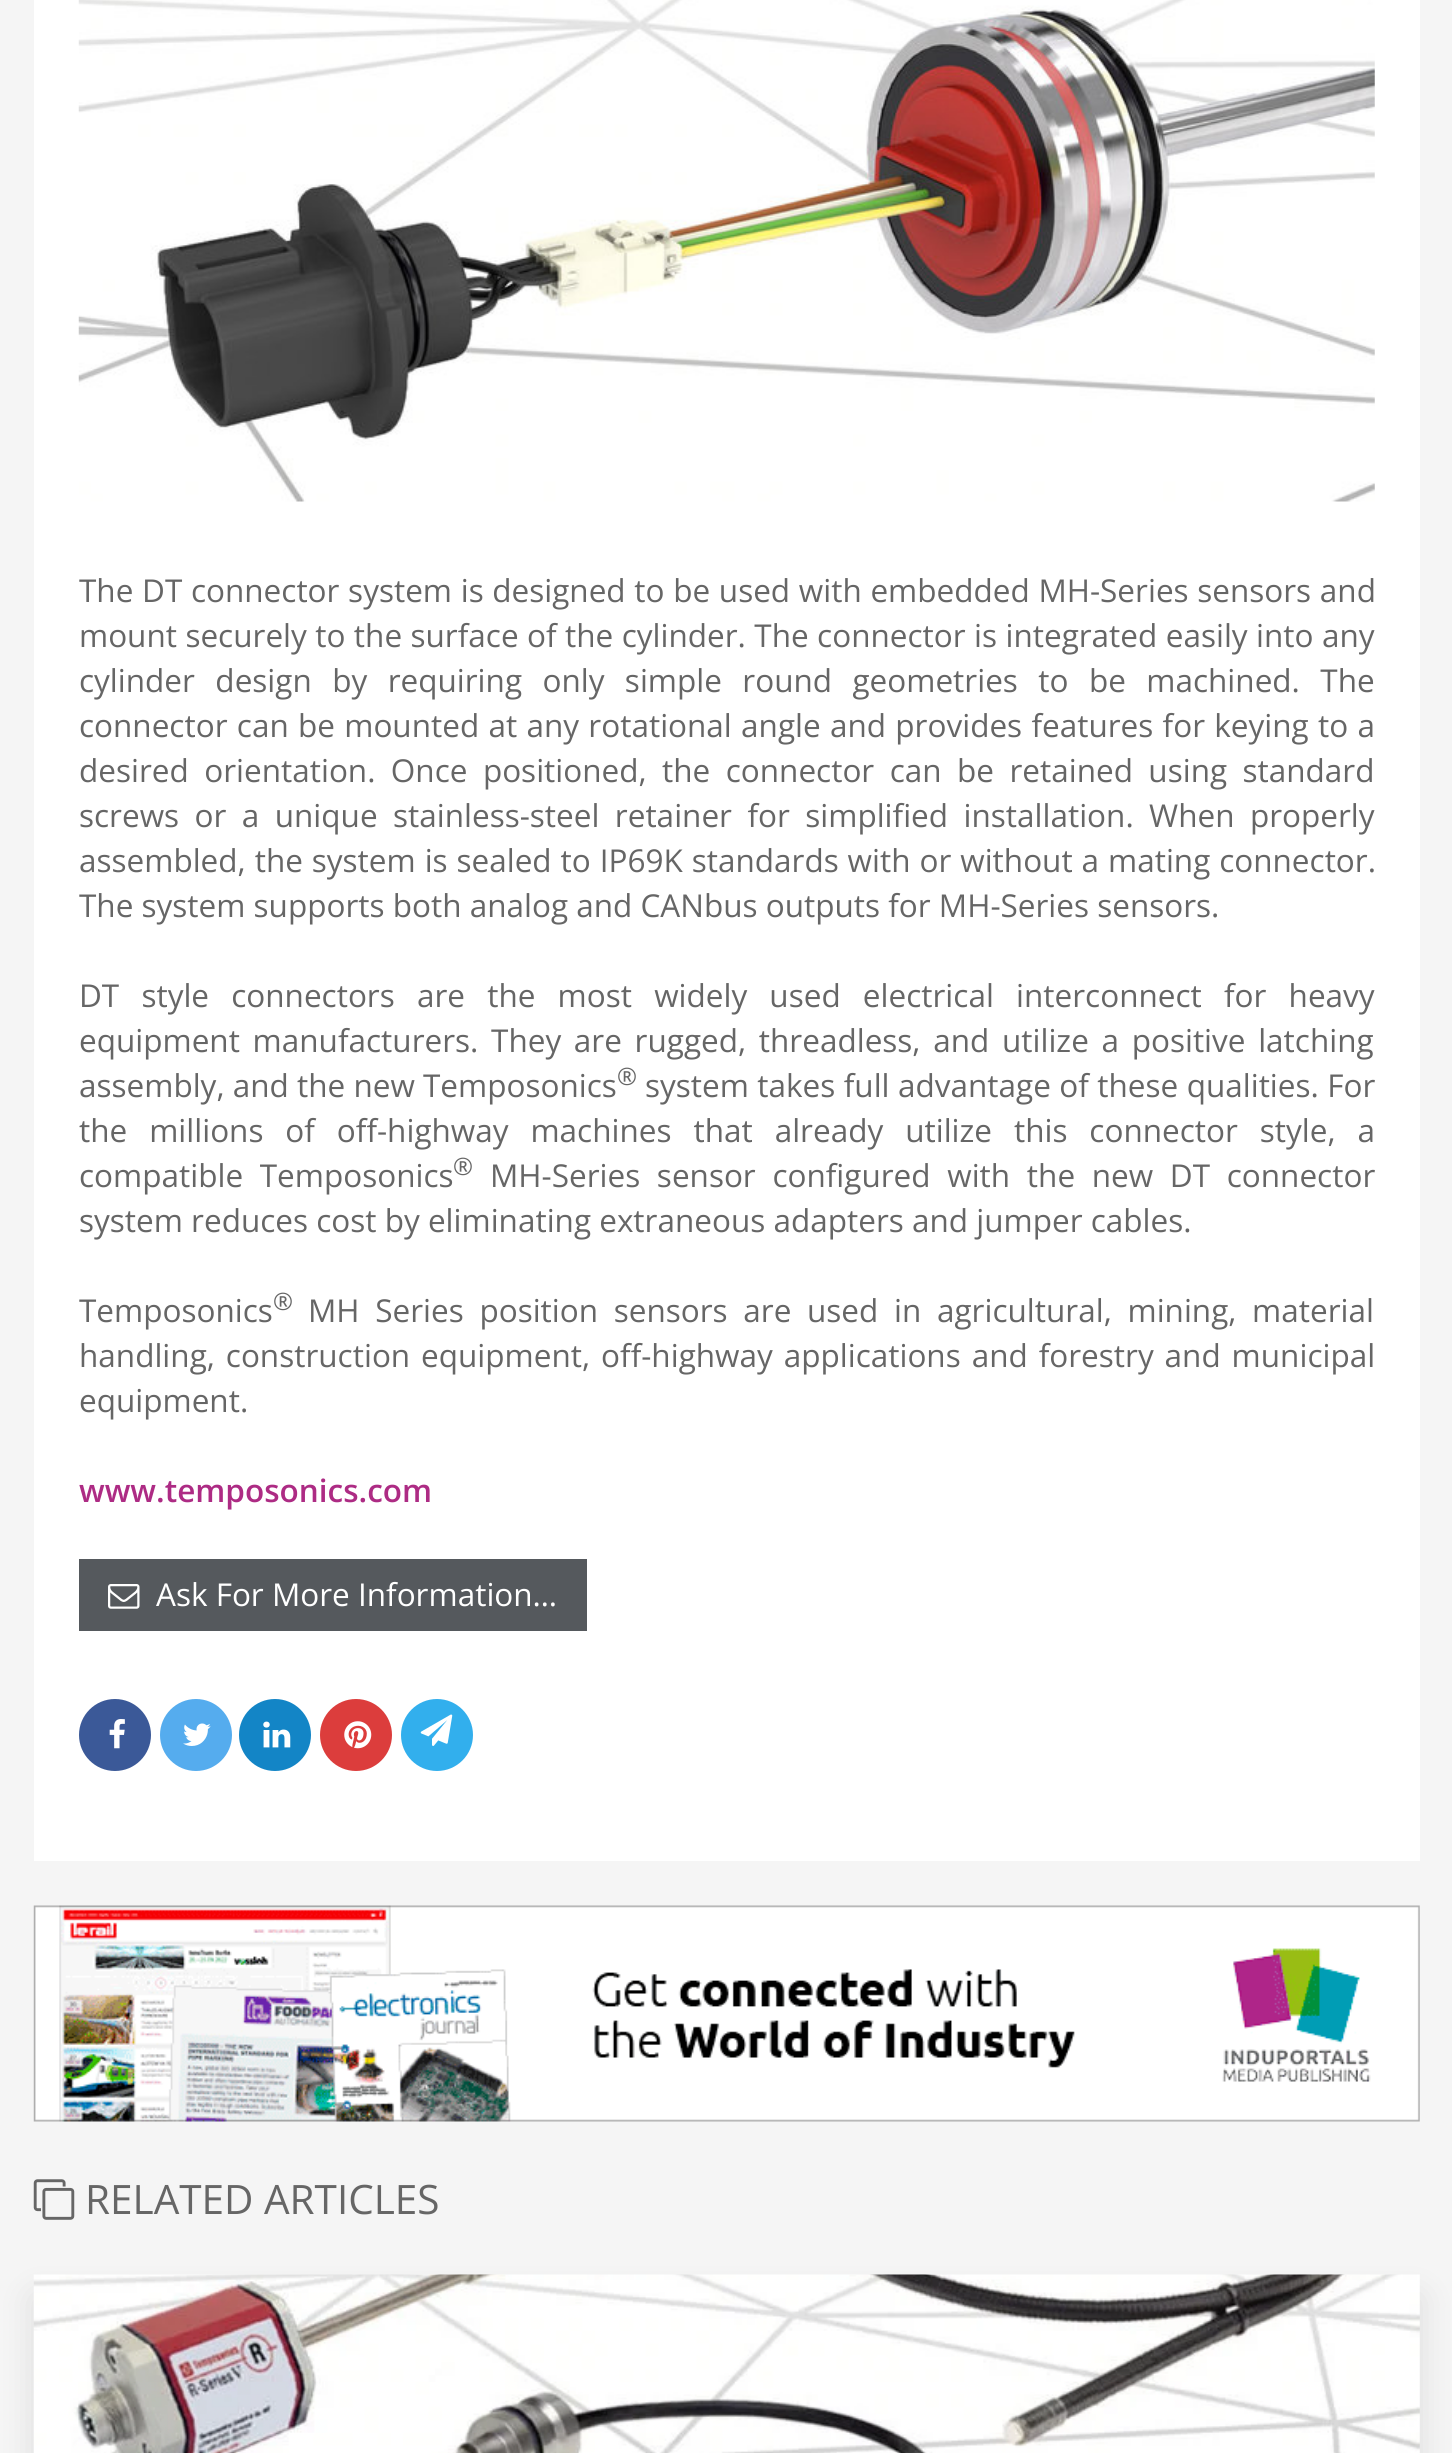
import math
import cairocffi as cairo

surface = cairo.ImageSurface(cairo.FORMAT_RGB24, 1452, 2453)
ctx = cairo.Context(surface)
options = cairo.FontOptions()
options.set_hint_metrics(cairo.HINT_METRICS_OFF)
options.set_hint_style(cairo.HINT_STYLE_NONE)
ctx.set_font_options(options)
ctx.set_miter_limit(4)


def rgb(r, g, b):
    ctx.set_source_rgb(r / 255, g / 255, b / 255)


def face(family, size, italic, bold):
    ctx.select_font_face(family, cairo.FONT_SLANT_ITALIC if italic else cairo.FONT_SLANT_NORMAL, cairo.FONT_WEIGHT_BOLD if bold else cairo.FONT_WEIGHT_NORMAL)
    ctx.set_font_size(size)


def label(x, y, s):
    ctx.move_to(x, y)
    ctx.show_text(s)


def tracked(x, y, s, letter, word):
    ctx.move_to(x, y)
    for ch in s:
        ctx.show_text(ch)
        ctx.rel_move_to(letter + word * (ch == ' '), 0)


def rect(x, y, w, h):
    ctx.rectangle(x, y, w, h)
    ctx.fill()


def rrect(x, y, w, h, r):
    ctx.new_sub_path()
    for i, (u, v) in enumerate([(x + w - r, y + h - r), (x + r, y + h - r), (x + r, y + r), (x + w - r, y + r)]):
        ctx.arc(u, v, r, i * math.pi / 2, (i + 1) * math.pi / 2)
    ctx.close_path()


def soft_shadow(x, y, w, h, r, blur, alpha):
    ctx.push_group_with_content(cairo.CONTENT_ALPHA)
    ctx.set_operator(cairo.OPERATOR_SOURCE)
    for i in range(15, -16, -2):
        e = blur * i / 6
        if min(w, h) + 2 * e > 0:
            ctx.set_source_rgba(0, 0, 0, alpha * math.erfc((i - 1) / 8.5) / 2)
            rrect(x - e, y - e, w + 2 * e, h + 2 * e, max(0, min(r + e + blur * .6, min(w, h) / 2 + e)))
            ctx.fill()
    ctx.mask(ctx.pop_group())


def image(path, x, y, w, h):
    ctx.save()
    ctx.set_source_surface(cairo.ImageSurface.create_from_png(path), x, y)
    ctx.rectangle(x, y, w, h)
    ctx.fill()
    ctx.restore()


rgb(245, 245, 245)
ctx.paint()
rgb(255, 255, 255)
rect(34, 0, 1386, 1861)
image('image0.png', 78, 0, 1297, 502)
face('Open Sans', 31.5, 0, 0)
rgb(102, 102, 102)
tracked(79, 602, 'The DT connector system is designed to be used with embedded MH-Series sensors and', 0, 0.5)
tracked(79, 647, 'mount securely to the surface of the cylinder. The connector is integrated easily into any', 0, 0.25)
tracked(79, 692, 'cylinder design by requiring only simple round geometries to be machined. The', 0, 12.25)
tracked(79, 737, 'connector can be mounted at any rotational angle and provides features for keying to a', 0, 1.1)
tracked(79, 782, 'desired orientation. Once positioned, the connector can be retained using standard', 0, 7.25)
tracked(79, 827, 'screws or a unique stainless-steel retainer for simplified installation. When properly', 0, 7.25)
tracked(79, 872, 'assembled, the system is sealed to IP69K standards with or without a mating connector.', 0, 0.75)
label(79, 917, 'The system supports both analog and CANbus outputs for MH-Series sensors.')
tracked(79, 1007, 'DT style connectors are the most widely used electrical interconnect for heavy', 0, 14)
tracked(79, 1052, 'equipment manufacturers. They are rugged, threadless, and utilize a positive latching', 0, 4.5)
label(79, 1097, 'assembly, and the new Temposonics')
face('Open Sans', 24, 0, 0)
label(617, 1085, '®')
face('Open Sans', 31.5, 0, 0)
tracked(645, 1097, 'system takes full advantage of these qualities. For', 0, 0.25)
tracked(79, 1142, 'the millions of off-highway machines that already utilize this connector style, a', 0, 13.75)
tracked(79, 1187, 'compatible Temposonics', 0, 8.5)
face('Open Sans', 24, 0, 0)
label(453, 1175, '®')
face('Open Sans', 31.5, 0, 0)
tracked(490, 1187, 'MH-Series sensor configured with the new DT connector', 0, 8.5)
label(79, 1232, 'system reduces cost by eliminating extraneous adapters and jumper cables.')
label(79, 1322, 'Temposonics')
face('Open Sans', 24, 0, 0)
label(273, 1310, '®')
face('Open Sans', 31.5, 0, 0)
tracked(308, 1322, 'MH Series position sensors are used in agricultural, mining, material', 0, 7.5)
tracked(79, 1367, 'handling, construction equipment, off-highway applications and forestry and municipal', 0, 2.75)
label(79, 1412, 'equipment.')
face('Open Sans SemiBold', 31.5, 0, 0)
rgb(173, 43, 132)
label(79, 1502, 'www.temposonics.com')
rgb(85, 89, 93)
rect(79, 1559, 508, 72)
image('image1.png', 108, 1584, 32, 25)
face('Open Sans', 31.5, 0, 0)
rgb(255, 255, 255)
label(156, 1606, 'Ask For More Information…')
rgb(59, 89, 152)
ctx.new_path()
ctx.arc(115, 1735, 36, 0, 2 * math.pi)
ctx.fill()
image('image2.png', 109, 1719, 16, 30)
rgb(85, 172, 238)
ctx.arc(196, 1735, 36, 0, 2 * math.pi)
ctx.fill()
image('image3.png', 183, 1723, 28, 23)
rgb(19, 133, 198)
ctx.arc(275, 1735, 36, 0, 2 * math.pi)
ctx.fill()
image('image4.png', 263, 1721, 28, 27)
rgb(220, 61, 60)
ctx.arc(356, 1735, 36, 0, 2 * math.pi)
ctx.fill()
image('image5.png', 344, 1721, 28, 28)
rgb(50, 175, 237)
ctx.arc(437, 1735, 36, 0, 2 * math.pi)
ctx.fill()
image('image6.png', 420, 1714, 33, 32)
image('image7.png', 33, 1905, 1387, 217)
image('image8.png', 33, 2179, 42, 41)
face('Open Sans', 40.5, 0, 0)
rgb(102, 102, 102)
label(85, 2214, 'RELATED ARTICLES')
rgb(0, 0, 0)
soft_shadow(34, 2297, 1386, 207, 0, 17, 0.1)
image('image9.png', 33, 2274, 1387, 179)
surface.write_to_png('render.png')
